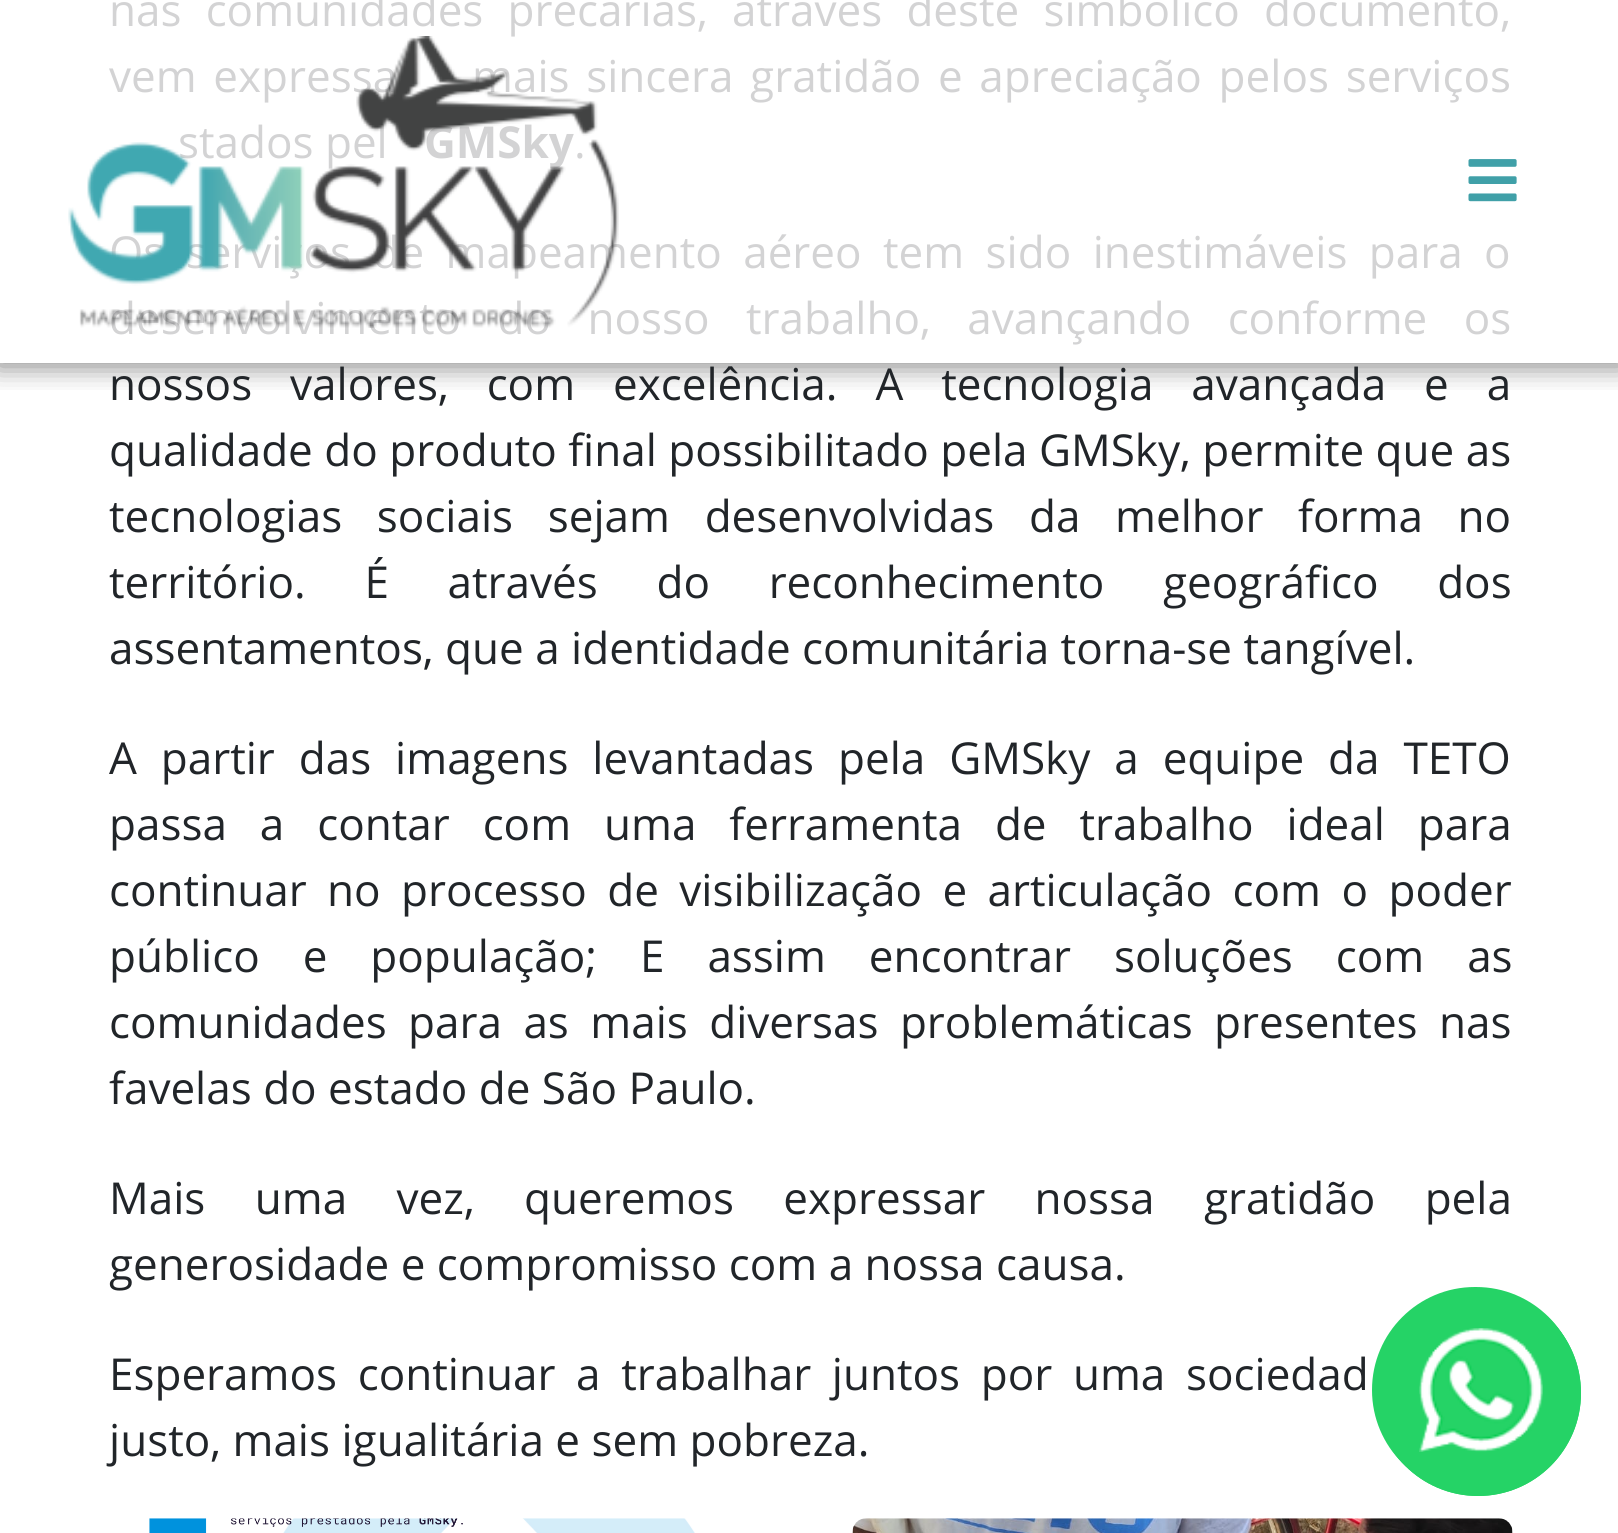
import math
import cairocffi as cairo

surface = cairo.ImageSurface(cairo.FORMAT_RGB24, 1618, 1533)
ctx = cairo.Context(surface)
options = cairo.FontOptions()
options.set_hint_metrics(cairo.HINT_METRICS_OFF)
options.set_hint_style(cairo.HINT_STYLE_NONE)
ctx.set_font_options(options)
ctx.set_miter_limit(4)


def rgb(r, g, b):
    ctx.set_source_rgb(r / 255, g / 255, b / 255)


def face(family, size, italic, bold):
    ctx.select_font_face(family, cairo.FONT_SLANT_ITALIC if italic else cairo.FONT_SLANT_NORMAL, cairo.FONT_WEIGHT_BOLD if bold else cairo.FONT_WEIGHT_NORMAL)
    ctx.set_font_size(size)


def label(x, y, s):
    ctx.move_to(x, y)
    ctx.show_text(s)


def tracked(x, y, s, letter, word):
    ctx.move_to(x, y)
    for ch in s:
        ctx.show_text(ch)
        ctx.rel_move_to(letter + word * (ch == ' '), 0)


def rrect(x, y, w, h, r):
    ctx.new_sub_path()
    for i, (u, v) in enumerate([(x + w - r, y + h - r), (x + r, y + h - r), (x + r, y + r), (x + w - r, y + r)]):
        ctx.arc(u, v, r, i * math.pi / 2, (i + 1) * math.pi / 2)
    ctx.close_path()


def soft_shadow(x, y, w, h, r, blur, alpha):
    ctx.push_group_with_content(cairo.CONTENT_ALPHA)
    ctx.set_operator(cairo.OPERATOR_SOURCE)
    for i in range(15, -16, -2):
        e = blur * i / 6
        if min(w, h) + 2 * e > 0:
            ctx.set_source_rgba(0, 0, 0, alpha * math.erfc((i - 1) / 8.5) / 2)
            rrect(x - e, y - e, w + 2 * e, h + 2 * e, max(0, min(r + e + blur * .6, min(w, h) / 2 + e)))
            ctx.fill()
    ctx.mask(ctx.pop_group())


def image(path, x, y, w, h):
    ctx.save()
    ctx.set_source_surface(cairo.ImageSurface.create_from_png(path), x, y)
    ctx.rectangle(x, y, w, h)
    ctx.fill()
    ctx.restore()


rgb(255, 255, 255)
ctx.paint()
ctx.save()
ctx.rectangle(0, 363, 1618, 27)
ctx.clip()
rgb(0, 0, 0)
soft_shadow(-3, -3, 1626, 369, 0, 14, 0.5)
ctx.restore()
face('Open Sans', 44, 0, 0)
rgb(211, 211, 212)
tracked(109, 26, 'nas comunidades precárias, através deste simbólico documento,', 0, 12.75)
tracked(109, 92, 'vem expressa', 0, 5.25)
tracked(472, 92, 'mais sincera gratidão e apreciação pelos serviços', 0, 5.25)
label(178, 158, 'stados pel')
face('Open Sans', 44, 0, 1)
label(424, 158, 'GMSky')
face('Open Sans', 44, 0, 0)
label(574, 158, '.')
tracked(109, 268, 'Os serviços de mapeamento aéreo tem sido inestimáveis para o', 0, 10)
tracked(109, 334, 'desenvolvimento do nosso trabalho, avançando conforme os', 0, 25)
image('image0.png', 68, 36, 551, 292)
image('image1.png', 1468, 159, 49, 43)
rgb(33, 37, 41)
tracked(109, 400, 'nossos valores, com excelência. A tecnologia avançada e a', 0, 26.5)
label(109, 466, 'qualidade do produto final possibilitado pela GMSky, permite que as')
tracked(109, 532, 'tecnologias sociais sejam desenvolvidas da melhor forma no', 0, 23.25)
tracked(109, 598, 'território. É através do reconhecimento geográfico dos', 0, 47.25)
label(109, 664, 'assentamentos, que a identidade comunitária torna-se tangível.')
tracked(109, 774, 'A partir das imagens levantadas pela GMSky a equipe da TETO', 0, 12.5)
tracked(109, 840, 'passa a contar com uma ferramenta de trabalho ideal para', 0, 21.5)
tracked(109, 906, 'continuar no processo de visibilização e articulação com o poder', 0, 9)
tracked(109, 972, 'público e população; E assim encontrar soluções com as', 0, 31.5)
tracked(109, 1038, 'comunidades para as mais diversas problemáticas presentes nas', 0, 10)
label(109, 1104, 'favelas do estado de São Paulo.')
tracked(109, 1214, 'Mais uma vez, queremos expressar nossa gratidão pela', 0, 38)
label(109, 1280, 'generosidade e compromisso com a nossa causa.')
tracked(109, 1390, 'Esperamos continuar a trabalhar juntos por uma sociedad', 0, 9.25)
label(109, 1456, 'justo, mais igualitária e sem pobreza.')
image('image2.png', 149, 1518, 546, 15)
image('image3.png', 852, 1518, 661, 15)
ctx.arc(1478, 1393, 96, 0, 2 * math.pi)
rgb(37, 211, 102)
ctx.set_line_width(14)
ctx.stroke()
ctx.arc(1478, 1393, 96, 0, 2 * math.pi)
ctx.stroke()
rrect(1372, 1287, 207, 206, 103)
ctx.fill()
image('image4.png', 1419, 1328, 124, 124)
surface.write_to_png('render.png')
